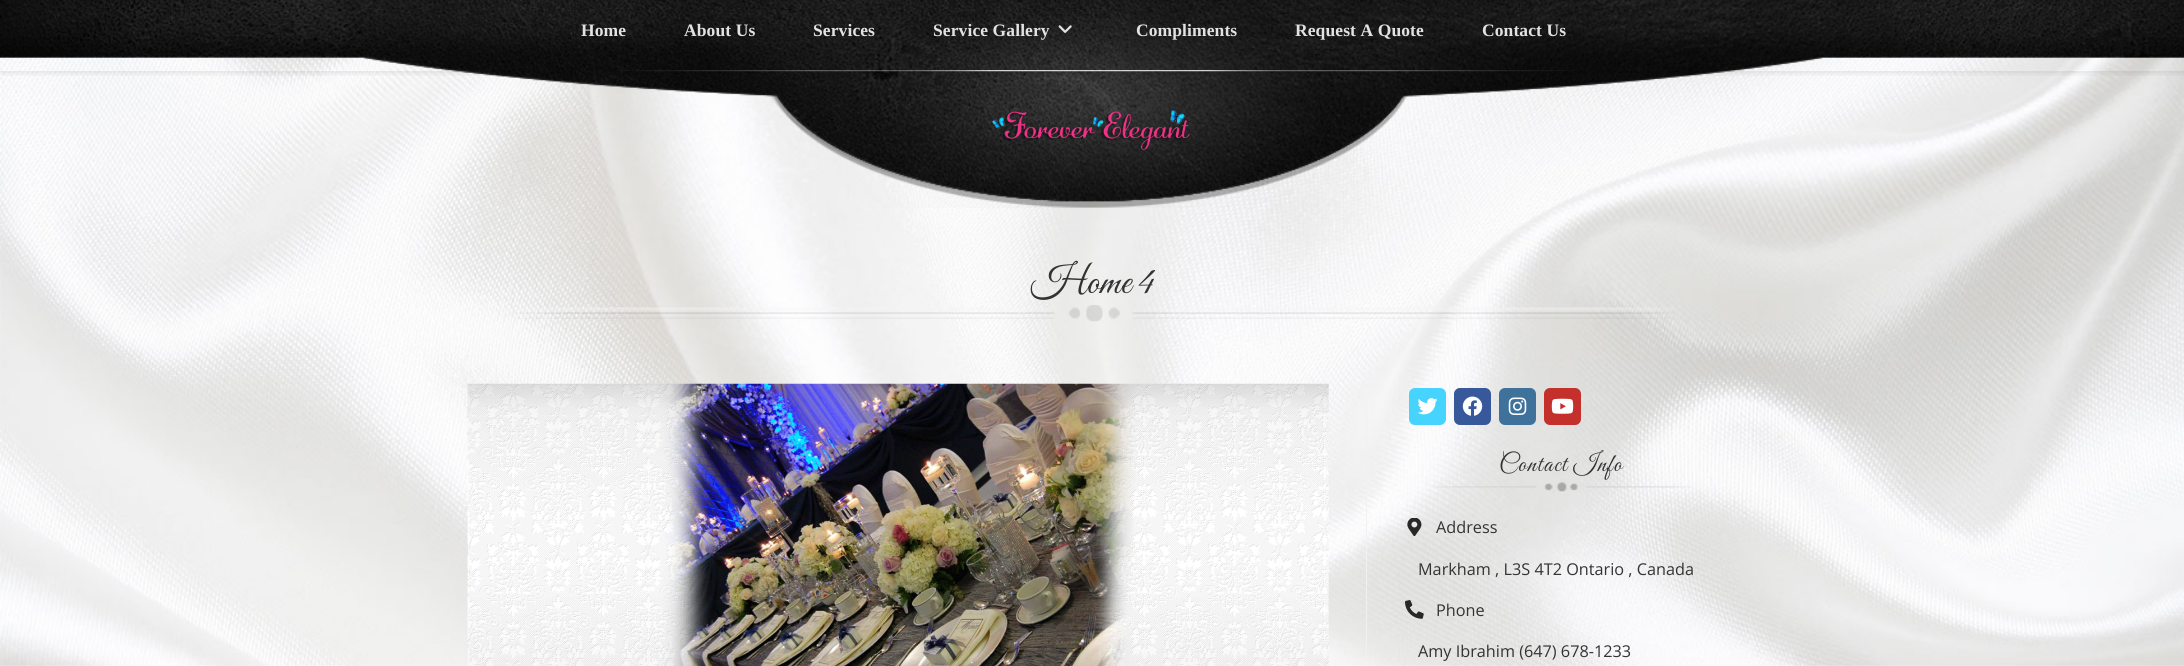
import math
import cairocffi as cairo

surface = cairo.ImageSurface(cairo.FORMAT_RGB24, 2184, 666)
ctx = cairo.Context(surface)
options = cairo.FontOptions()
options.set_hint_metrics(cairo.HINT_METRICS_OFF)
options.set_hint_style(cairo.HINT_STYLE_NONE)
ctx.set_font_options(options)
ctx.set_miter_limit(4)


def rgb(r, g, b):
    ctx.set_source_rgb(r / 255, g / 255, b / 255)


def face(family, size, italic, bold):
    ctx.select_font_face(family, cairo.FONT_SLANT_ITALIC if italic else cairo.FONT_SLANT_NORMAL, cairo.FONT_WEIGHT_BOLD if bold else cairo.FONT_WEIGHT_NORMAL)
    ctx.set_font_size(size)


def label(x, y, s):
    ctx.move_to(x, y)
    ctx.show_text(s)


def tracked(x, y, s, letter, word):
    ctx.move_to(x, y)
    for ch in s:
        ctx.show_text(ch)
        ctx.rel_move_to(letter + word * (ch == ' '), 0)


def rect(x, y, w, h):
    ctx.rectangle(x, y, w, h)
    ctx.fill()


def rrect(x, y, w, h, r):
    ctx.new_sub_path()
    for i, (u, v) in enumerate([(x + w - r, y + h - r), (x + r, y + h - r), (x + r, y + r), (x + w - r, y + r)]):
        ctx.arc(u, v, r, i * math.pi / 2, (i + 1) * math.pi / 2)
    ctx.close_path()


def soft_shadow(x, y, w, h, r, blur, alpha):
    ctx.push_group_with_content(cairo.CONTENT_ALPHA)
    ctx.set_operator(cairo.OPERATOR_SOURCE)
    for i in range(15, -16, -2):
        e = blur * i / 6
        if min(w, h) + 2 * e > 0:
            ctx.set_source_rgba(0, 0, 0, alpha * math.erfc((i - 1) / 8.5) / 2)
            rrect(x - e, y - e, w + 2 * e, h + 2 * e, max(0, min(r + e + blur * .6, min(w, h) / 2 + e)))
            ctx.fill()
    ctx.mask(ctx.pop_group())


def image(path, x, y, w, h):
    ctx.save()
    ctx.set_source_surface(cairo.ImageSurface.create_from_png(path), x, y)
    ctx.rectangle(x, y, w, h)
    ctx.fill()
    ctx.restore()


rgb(255, 255, 255)
ctx.paint()
image('image0.png', 0, 57, 2184, 609)
image('image1.png', 0, 0, 2184, 208)
ctx.save()
ctx.rectangle(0, 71, 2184, 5)
ctx.clip()
rgb(0, 0, 0)
soft_shadow(0, 1, 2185, 72, 0, 3, 0.1)
ctx.restore()
image('image2.png', 622, 70, 952, 2)
face('Liberation Serif', 17.5, 0, 1)
rgb(226, 226, 226)
tracked(581, 36, 'Home', 0.1, 0)
tracked(684, 36, 'About Us', 0.1, 0)
tracked(813, 36, 'Services', 0.1, 0)
tracked(933, 36, 'Service Gallery', 0.1, 0)
image('image3.png', 1058, 25, 14, 8)
tracked(1136, 36, 'Compliments', 0.1, 0)
tracked(1295, 36, 'Request A Quote', 0.1, 0)
tracked(1482, 36, 'Contact Us', 0.1, 0)
image('image4.png', 991, 109, 199, 42)
image('image5.png', 514, 305, 1160, 17)
face('Great Vibes', 40, 0, 0)
rgb(51, 51, 51)
label(1031, 293, 'Home 4')
rgb(241, 241, 241)
rect(1366, 402, 1, 264)
image('image6.png', 467, 383, 862, 283)
rgb(70, 212, 254)
rrect(1409, 388, 37, 37, 6)
ctx.fill()
image('image7.png', 1417, 398, 21, 17)
rgb(55, 88, 155)
rrect(1454, 388, 37, 37, 6)
ctx.fill()
image('image8.png', 1462, 396, 21, 20)
rgb(63, 114, 155)
rrect(1499, 388, 37, 37, 6)
ctx.fill()
image('image9.png', 1508, 397, 19, 18)
rgb(196, 48, 43)
rrect(1544, 388, 37, 37, 6)
ctx.fill()
image('image10.png', 1551, 398, 23, 16)
image('image11.png', 1433, 482, 260, 10)
face('Great Vibes', 25, 0, 0)
rgb(51, 51, 51)
tracked(1499, 471, 'Contact Info', 1.25, 0)
image('image12.png', 1407, 518, 15, 18)
face('Open Sans', 16.25, 0, 0)
label(1436, 533, 'Address')
label(1418, 575, 'Markham , L3S 4T2 Ontario , Canada')
image('image13.png', 1405, 600, 19, 19)
label(1436, 616, 'Phone')
label(1418, 657, 'Amy Ibrahim (647) 678-1233')
surface.write_to_png('render.png')
